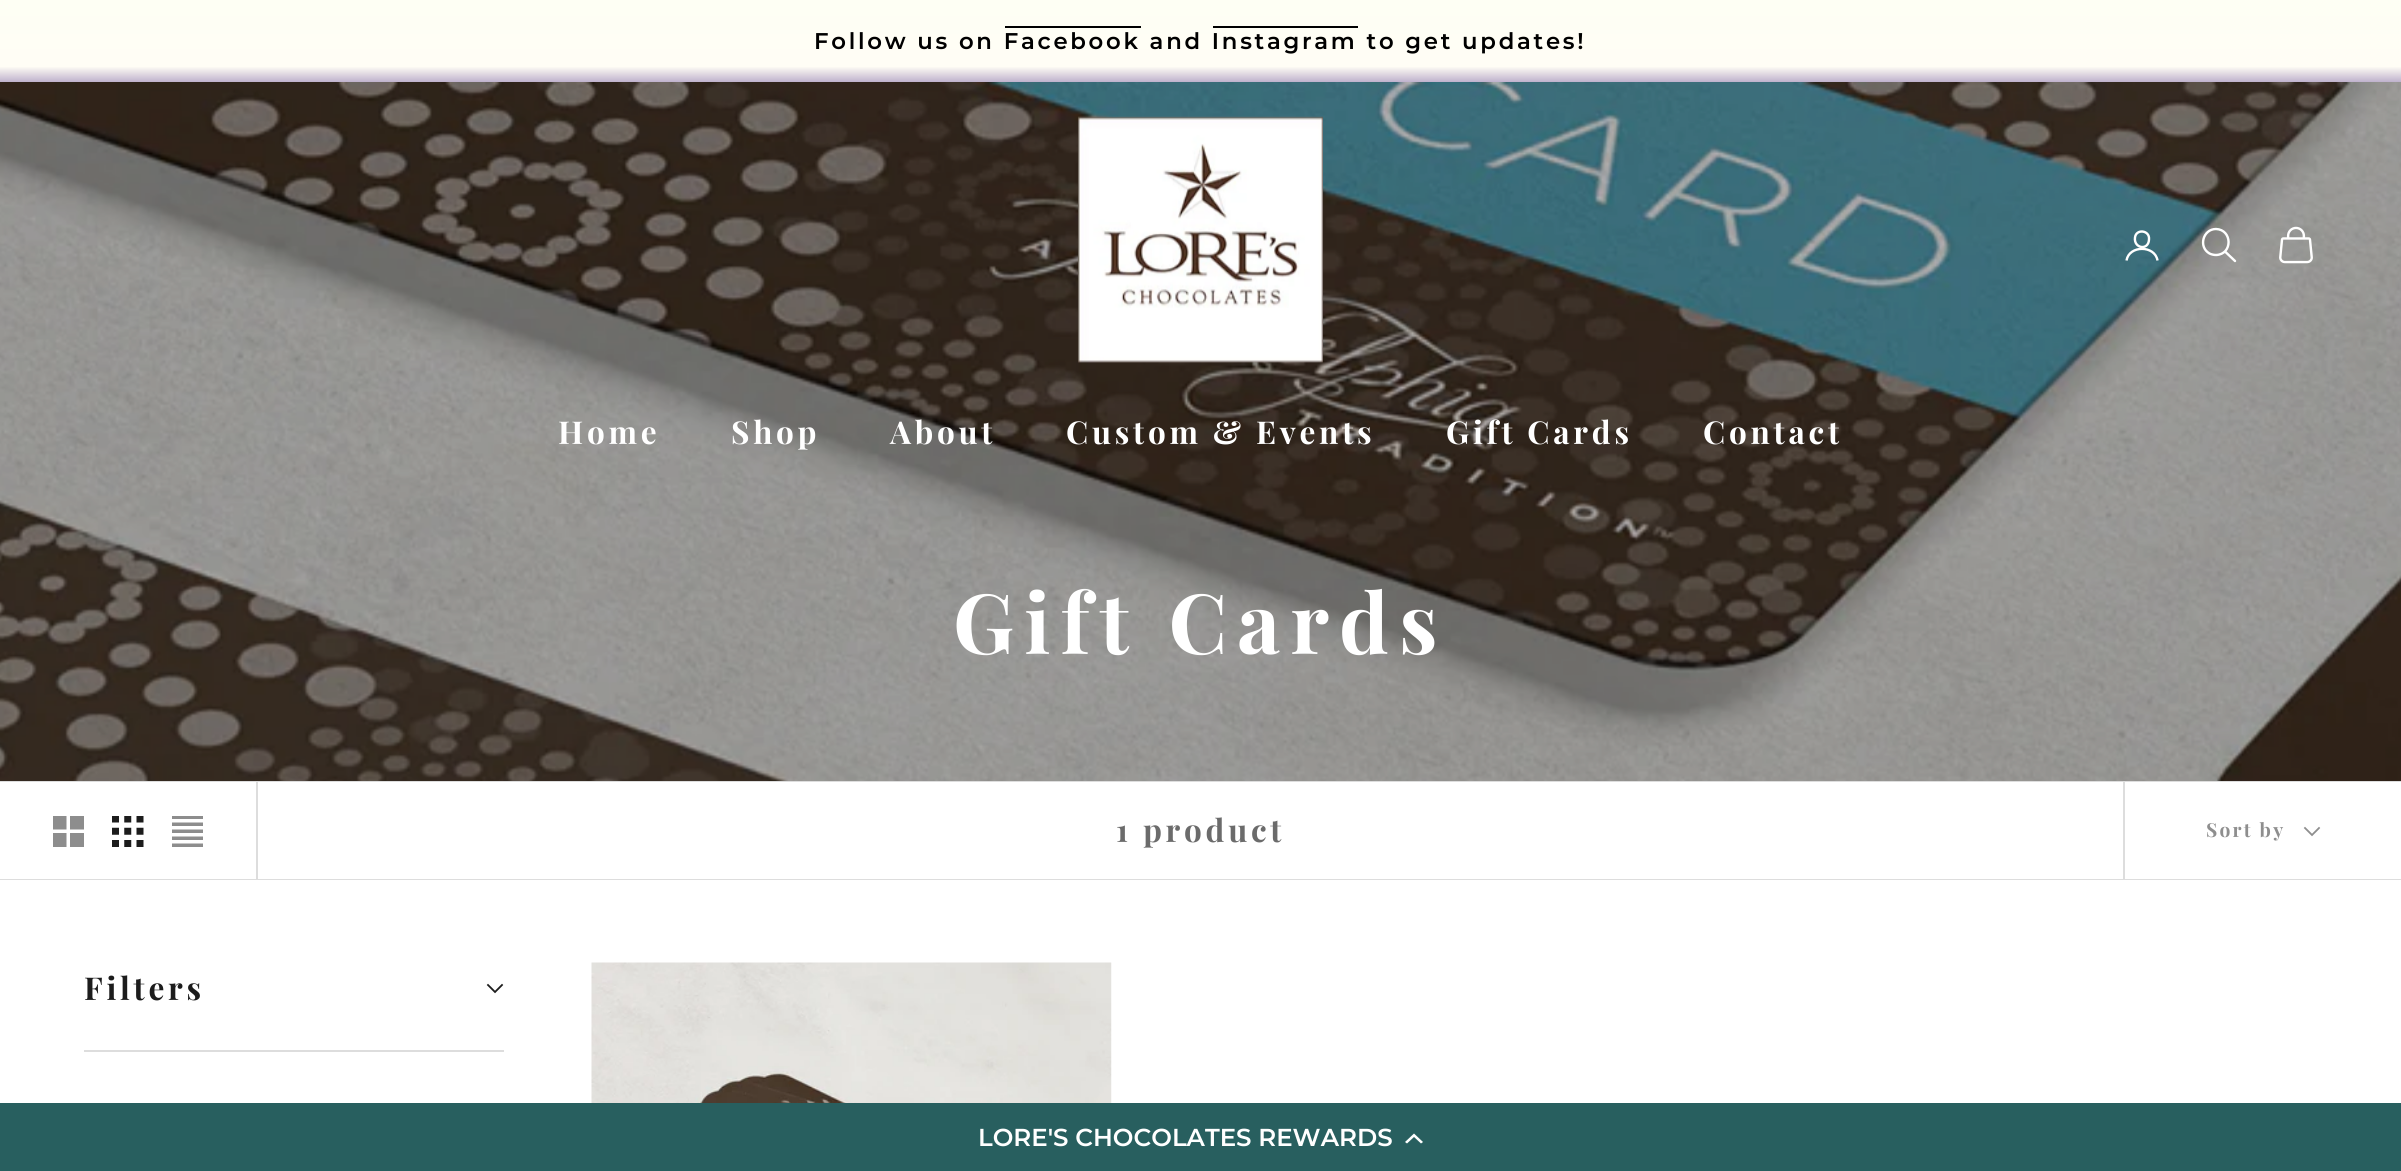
import math
import cairocffi as cairo

surface = cairo.ImageSurface(cairo.FORMAT_RGB24, 2401, 1171)
ctx = cairo.Context(surface)
options = cairo.FontOptions()
options.set_hint_metrics(cairo.HINT_METRICS_OFF)
options.set_hint_style(cairo.HINT_STYLE_NONE)
ctx.set_font_options(options)
ctx.set_miter_limit(4)


def rgb(r, g, b):
    ctx.set_source_rgb(r / 255, g / 255, b / 255)


def face(family, size, italic, bold):
    ctx.select_font_face(family, cairo.FONT_SLANT_ITALIC if italic else cairo.FONT_SLANT_NORMAL, cairo.FONT_WEIGHT_BOLD if bold else cairo.FONT_WEIGHT_NORMAL)
    ctx.set_font_size(size)


def label(x, y, s):
    ctx.move_to(x, y)
    ctx.show_text(s)


def tracked(x, y, s, letter, word):
    ctx.move_to(x, y)
    for ch in s:
        ctx.show_text(ch)
        ctx.rel_move_to(letter + word * (ch == ' '), 0)


def rect(x, y, w, h):
    ctx.rectangle(x, y, w, h)
    ctx.fill()


def image(path, x, y, w, h):
    ctx.save()
    ctx.set_source_surface(cairo.ImageSurface.create_from_png(path), x, y)
    ctx.rectangle(x, y, w, h)
    ctx.fill()
    ctx.restore()


rgb(255, 255, 255)
ctx.paint()
gradient = cairo.LinearGradient(1201, 0, 1201, 82)
gradient.add_color_stop_rgba(0, 0.996, 1, 0.957, 1)
gradient.add_color_stop_rgba(0.81, 1, 0.992, 0.961, 1)
gradient.add_color_stop_rgba(1, 0.749, 0.698, 0.804, 1)
ctx.set_source(gradient)
rect(0, 0, 2401, 82)
rgb(0, 0, 0)
rect(1005, 26, 136, 2)
rect(1213, 26, 145, 2)
face('Montserrat Thin', 22.75, 0, 0)
tracked(814, 49, 'Follow us on Facebook and Instagram to get updates!', 2.73, 0)
image('image2.png', 0, 82, 2401, 699)
image('image0.png', 1078, 116, 245, 247)
ctx.new_path()
ctx.move_to(2149, 239.5)
ctx.curve_to(2148.5, 251, 2133.5, 248.5, 2135, 237.5)
ctx.curve_to(2136, 228.5, 2150, 230, 2149, 239.5)
ctx.close_path()
rgb(255, 255, 255)
ctx.set_line_width(2.4)
ctx.set_line_cap(cairo.LINE_CAP_ROUND)
ctx.set_line_join(cairo.LINE_JOIN_ROUND)
ctx.stroke()
ctx.new_path()
ctx.move_to(2126.5, 260.5)
ctx.curve_to(2129, 245, 2155, 245, 2157.5, 260.5)
ctx.set_line_cap(cairo.LINE_CAP_BUTT)
ctx.set_line_join(cairo.LINE_JOIN_MITER)
ctx.stroke()
ctx.new_path()
ctx.move_to(2216, 229)
ctx.curve_to(2203, 229, 2198, 247, 2209.5, 253.5)
ctx.curve_to(2211.5, 254.5, 2214, 255, 2216, 255)
ctx.curve_to(2233, 254.5, 2232.5, 229.5, 2216, 229)
ctx.close_path()
ctx.stroke()
ctx.new_path()
ctx.move_to(2225.5, 252)
ctx.line_to(2235, 261)
ctx.set_line_cap(cairo.LINE_CAP_ROUND)
ctx.stroke()
image('image1.png', 2279, 226, 34, 38)
face('Playfair Display', 31.5, 0, 1)
tracked(558, 444, 'Home', 3.75, 0)
tracked(731, 444, 'Shop', 3.75, 0)
tracked(890, 444, 'About', 3.75, 0)
tracked(1066, 444, 'Custom & Events', 3.75, 0)
tracked(1446, 444, 'Gift Cards', 3.75, 0)
tracked(1703, 444, 'Contact', 3.75, 0)
face('Playfair Display', 83.25, 0, 1)
tracked(953, 654, 'Gift Cards', 10, 0)
rgb(221, 221, 221)
rect(0, 781, 2401, 1)
rect(0, 879, 2401, 1)
rect(256, 782, 2, 97)
image('image3.png', 53, 816, 31, 31)
image('image4.png', 112, 816, 32, 31)
image('image5.png', 172, 816, 31, 31)
face('Playfair Display', 31.5, 0, 1)
rgb(107, 107, 107)
tracked(1116, 842, '1 product', 3.75, 0)
rgb(221, 221, 221)
rect(2123, 782, 2, 97)
face('Playfair Display', 19.25, 0, 1)
rgb(142, 142, 142)
tracked(2206, 837, 'Sort by', 2.25, 0)
ctx.new_path()
ctx.move_to(2305, 828)
ctx.line_to(2312, 835)
ctx.line_to(2319, 828)
ctx.set_line_width(1.8)
ctx.set_line_cap(cairo.LINE_CAP_SQUARE)
ctx.stroke()
rgb(221, 221, 221)
rect(84, 1050, 420, 2)
face('Playfair Display', 31.5, 0, 1)
rgb(28, 28, 28)
tracked(84, 1000, 'Filters', 3.75, 0)
ctx.new_path()
ctx.move_to(488, 985)
ctx.line_to(495, 992)
ctx.line_to(502, 985)
ctx.stroke()
image('image6.png', 591, 962, 521, 141)
rgb(40, 95, 95)
rect(0, 1103, 2401, 68)
face('Montserrat Thin', 24.5, 0, 0)
rgb(255, 255, 255)
label(978, 1146, 'LORE\'S CHOCOLATES REWARDS')
ctx.new_path()
ctx.move_to(1414, 1137)
ctx.line_to(1407, 1143.5)
ctx.line_to(1405, 1142)
ctx.line_to(1414, 1133.5)
ctx.line_to(1423, 1142)
ctx.line_to(1421, 1143.5)
ctx.close_path()
ctx.fill()
surface.write_to_png('render.png')
